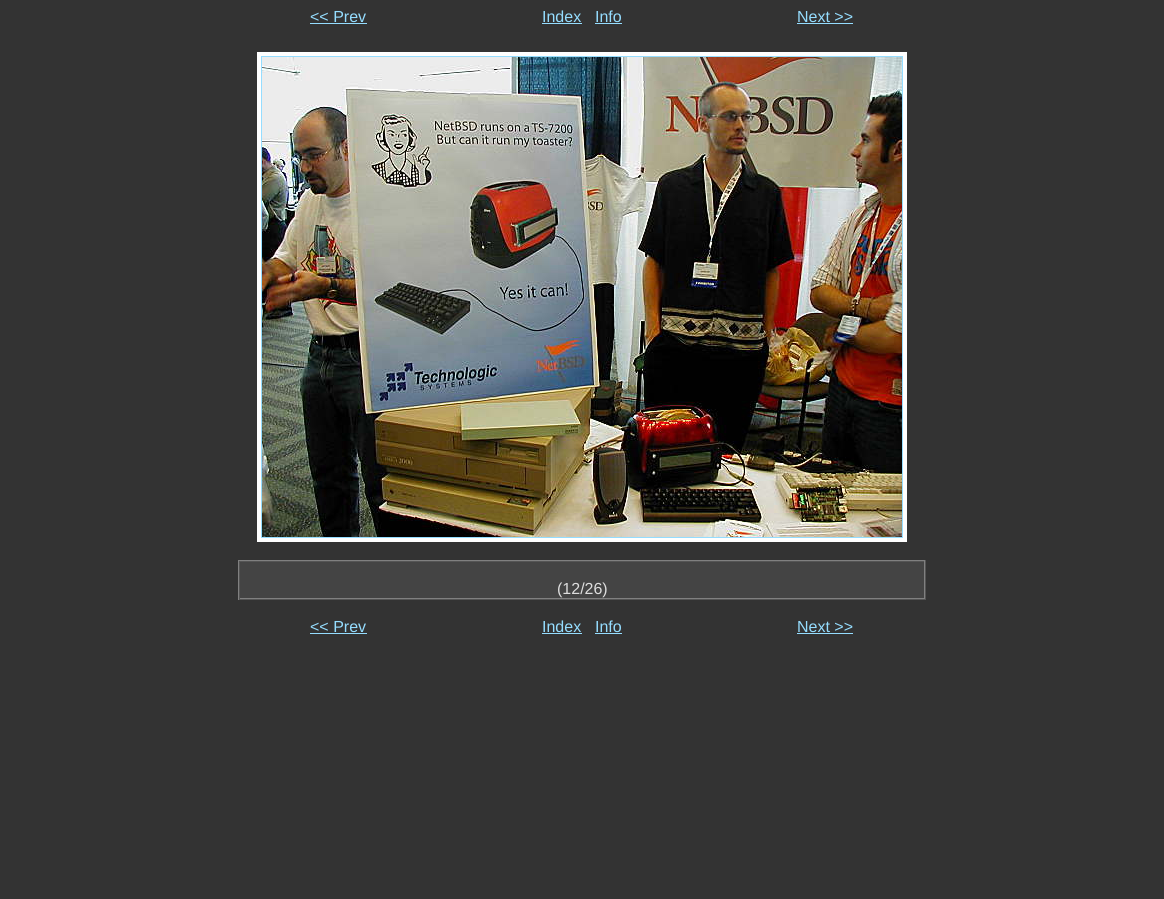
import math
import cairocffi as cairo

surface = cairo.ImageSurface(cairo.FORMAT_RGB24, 1164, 899)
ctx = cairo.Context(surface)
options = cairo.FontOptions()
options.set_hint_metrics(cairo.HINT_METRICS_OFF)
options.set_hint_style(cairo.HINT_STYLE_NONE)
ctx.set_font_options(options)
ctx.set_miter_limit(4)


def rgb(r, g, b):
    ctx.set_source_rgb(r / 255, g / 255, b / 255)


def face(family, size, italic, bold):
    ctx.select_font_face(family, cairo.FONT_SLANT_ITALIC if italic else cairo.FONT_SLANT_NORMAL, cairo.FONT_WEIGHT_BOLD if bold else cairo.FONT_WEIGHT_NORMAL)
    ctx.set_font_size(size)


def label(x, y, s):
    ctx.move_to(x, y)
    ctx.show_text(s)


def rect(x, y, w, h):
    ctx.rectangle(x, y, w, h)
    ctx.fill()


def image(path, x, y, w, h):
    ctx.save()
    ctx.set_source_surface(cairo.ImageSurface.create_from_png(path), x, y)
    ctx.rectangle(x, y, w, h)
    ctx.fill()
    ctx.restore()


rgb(51, 51, 51)
ctx.paint()
face('Liberation Sans', 16, 0, 0)
rgb(149, 221, 255)
label(310, 22, '<< Prev')
rect(310, 23, 57, 1)
label(542, 22, 'Index')
rect(542, 23, 40, 1)
label(595, 22, 'Info')
rect(595, 23, 27, 1)
label(797, 22, 'Next >>')
rect(797, 23, 56, 1)
rgb(255, 255, 255)
rect(257, 52, 650, 490)
ctx.rectangle(261.5, 56.5, 641, 481)
rgb(149, 221, 255)
ctx.set_line_width(1)
ctx.stroke()
image('image0.png', 262, 57, 640, 480)
rgb(68, 68, 68)
rect(240, 562, 684, 36)
rgb(128, 128, 128)
rect(238, 560, 688, 1)
rgb(85, 85, 85)
rect(925, 560, 1, 40)
rect(238, 599, 688, 1)
rgb(128, 128, 128)
rect(238, 560, 1, 40)
rgb(85, 85, 85)
rect(239, 561, 686, 1)
rgb(128, 128, 128)
rect(924, 561, 1, 38)
rect(239, 598, 686, 1)
rgb(85, 85, 85)
rect(239, 561, 1, 38)
rgb(221, 221, 221)
label(557, 594, '(12/26)')
rgb(149, 221, 255)
label(310, 632, '<< Prev')
rect(310, 633, 57, 1)
label(542, 632, 'Index')
rect(542, 633, 40, 1)
label(595, 632, 'Info')
rect(595, 633, 27, 1)
label(797, 632, 'Next >>')
rect(797, 633, 56, 1)
surface.write_to_png('render.png')
